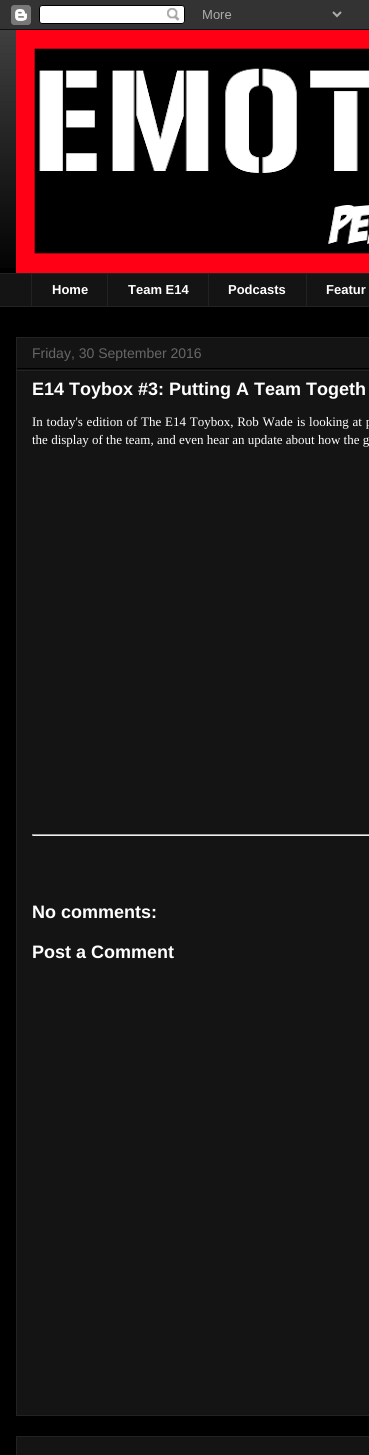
import math
import cairocffi as cairo

surface = cairo.ImageSurface(cairo.FORMAT_RGB24, 369, 1455)
ctx = cairo.Context(surface)
options = cairo.FontOptions()
options.set_hint_metrics(cairo.HINT_METRICS_OFF)
options.set_hint_style(cairo.HINT_STYLE_NONE)
ctx.set_font_options(options)
ctx.set_miter_limit(4)


def rgb(r, g, b):
    ctx.set_source_rgb(r / 255, g / 255, b / 255)


def face(family, size, italic, bold):
    ctx.select_font_face(family, cairo.FONT_SLANT_ITALIC if italic else cairo.FONT_SLANT_NORMAL, cairo.FONT_WEIGHT_BOLD if bold else cairo.FONT_WEIGHT_NORMAL)
    ctx.set_font_size(size)


def label(x, y, s):
    ctx.move_to(x, y)
    ctx.show_text(s)


def tracked(x, y, s, letter, word):
    ctx.move_to(x, y)
    for ch in s:
        ctx.show_text(ch)
        ctx.rel_move_to(letter + word * (ch == ' '), 0)


def rect(x, y, w, h):
    ctx.rectangle(x, y, w, h)
    ctx.fill()


def image(path, x, y, w, h):
    ctx.save()
    ctx.set_source_surface(cairo.ImageSurface.create_from_png(path), x, y)
    ctx.rectangle(x, y, w, h)
    ctx.fill()
    ctx.restore()


rgb(0, 0, 0)
ctx.paint()
image('image0.png', 0, 0, 369, 30)
image('image1.png', 0, 30, 16, 238)
image('image2.png', 16, 30, 353, 243)
rgb(20, 20, 20)
rect(0, 274, 369, 32)
rgb(34, 34, 34)
rect(0, 273, 369, 1)
rect(31, 273, 1, 34)
face('Liberation Sans', 13, 0, 1)
rgb(255, 255, 255)
label(52, 294, 'Home')
rgb(34, 34, 34)
rect(107, 273, 1, 34)
rgb(255, 255, 255)
label(128, 294, 'Team E14')
rgb(34, 34, 34)
rect(208, 273, 1, 34)
rgb(255, 255, 255)
label(228, 294, 'Podcasts')
rgb(34, 34, 34)
rect(306, 273, 1, 34)
rgb(255, 255, 255)
label(326, 294, 'Featur')
rgb(34, 34, 34)
rect(0, 306, 369, 1)
rgb(20, 20, 20)
ctx.rectangle(16.5, 337.5, 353, 1078)
ctx.fill_preserve()
rgb(34, 34, 34)
ctx.set_line_width(1)
ctx.stroke()
rgb(0, 0, 0)
rect(17, 368, 352, 1)
face('Liberation Sans', 14, 0, 0)
rgb(102, 102, 102)
label(32, 358, 'Friday, 30 September 2016')
rgb(34, 34, 34)
rect(17, 370, 352, 1)
face('Liberation Sans', 18, 0, 1)
rgb(255, 255, 255)
label(32, 395, 'E14 Toybox #3: Putting A Team Togeth')
face('Liberation Serif', 13, 0, 0)
tracked(32, 426, 'In today\'s edition of The E14 Toybox, Rob Wade is looking at p', 0, 0.5)
label(32, 444, 'the display of the team, and even hear an update about how the g')
rgb(159, 159, 159)
rect(32, 834, 337, 1)
rgb(238, 238, 238)
rect(32, 835, 337, 1)
rgb(159, 159, 159)
rect(32, 834, 1, 2)
face('Liberation Sans', 18, 0, 1)
rgb(255, 255, 255)
label(32, 918, 'No comments:')
label(32, 958, 'Post a Comment')
rgb(20, 20, 20)
ctx.rectangle(16.5, 1436.5, 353, 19)
ctx.fill_preserve()
rgb(34, 34, 34)
ctx.stroke()
surface.write_to_png('render.png')
